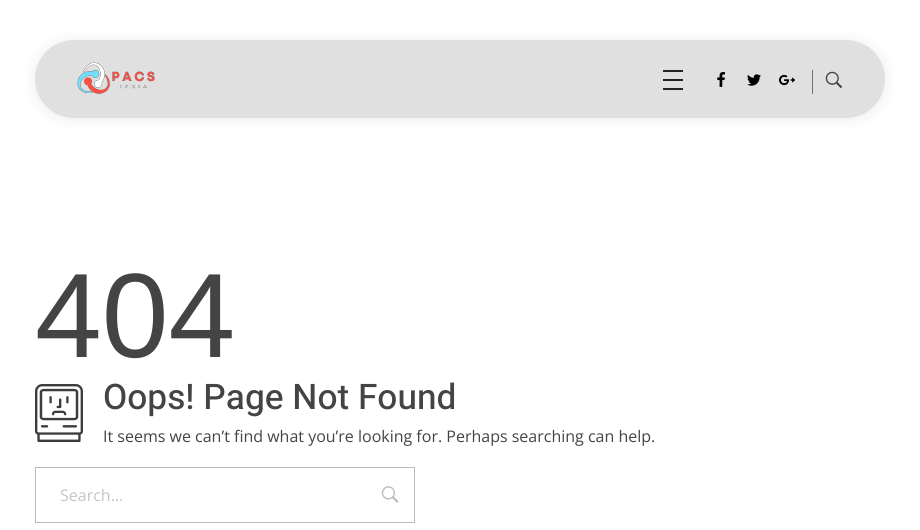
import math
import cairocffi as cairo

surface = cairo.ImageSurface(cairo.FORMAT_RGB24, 920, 530)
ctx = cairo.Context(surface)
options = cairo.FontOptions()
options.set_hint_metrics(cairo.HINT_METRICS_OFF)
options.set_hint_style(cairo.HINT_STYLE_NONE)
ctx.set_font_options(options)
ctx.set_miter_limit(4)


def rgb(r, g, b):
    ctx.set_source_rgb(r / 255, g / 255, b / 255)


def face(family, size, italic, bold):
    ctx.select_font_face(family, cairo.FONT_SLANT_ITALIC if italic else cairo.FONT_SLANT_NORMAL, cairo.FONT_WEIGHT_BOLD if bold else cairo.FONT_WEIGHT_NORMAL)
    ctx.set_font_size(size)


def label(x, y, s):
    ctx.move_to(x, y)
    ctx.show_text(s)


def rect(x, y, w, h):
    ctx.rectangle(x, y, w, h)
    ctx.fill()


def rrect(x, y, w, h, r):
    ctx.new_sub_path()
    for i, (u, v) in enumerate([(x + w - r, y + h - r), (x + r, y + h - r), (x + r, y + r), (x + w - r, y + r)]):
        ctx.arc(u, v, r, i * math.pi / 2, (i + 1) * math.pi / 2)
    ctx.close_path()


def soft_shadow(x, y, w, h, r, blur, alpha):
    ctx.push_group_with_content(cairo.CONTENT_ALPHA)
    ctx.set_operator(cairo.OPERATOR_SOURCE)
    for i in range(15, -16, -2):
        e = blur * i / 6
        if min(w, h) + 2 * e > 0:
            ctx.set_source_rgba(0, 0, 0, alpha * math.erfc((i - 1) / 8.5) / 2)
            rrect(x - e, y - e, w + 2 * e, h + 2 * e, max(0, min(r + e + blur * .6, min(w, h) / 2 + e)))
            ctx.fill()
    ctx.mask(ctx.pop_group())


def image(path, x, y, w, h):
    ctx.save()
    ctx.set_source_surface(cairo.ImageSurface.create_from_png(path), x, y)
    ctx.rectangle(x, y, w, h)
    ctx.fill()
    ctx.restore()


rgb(255, 255, 255)
ctx.paint()
rgb(0, 0, 0)
soft_shadow(35, 41, 850, 78, 39, 7.5, 0.08)
rgb(224, 224, 224)
rrect(35, 40, 850, 78, 39)
ctx.fill()
image('image0.png', 77, 62, 78, 33)
rgb(34, 34, 34)
rect(663, 70, 20, 2)
rect(663, 79, 20, 2)
rect(663, 88, 20, 2)
rgb(113, 113, 113)
rect(812, 70, 1, 24)
image('image1.png', 717, 72, 8, 15)
image('image2.png', 747, 74, 14, 12)
image('image3.png', 779, 74, 16, 12)
image('image4.png', 825, 71, 18, 18)
face('Liberation Sans', 120, 0, 0)
rgb(68, 68, 68)
label(35, 357, '404')
image('image5.png', 35, 384, 48, 58)
face('Heebo Medium', 35.25, 0, 0)
label(103, 409, 'Oops! Page Not Found')
face('Open Sans', 16, 0, 0)
label(103, 442, 'It seems we can’t find what you’re looking for. Perhaps searching can help.')
ctx.rectangle(35.5, 467.5, 379, 55)
rgb(187, 187, 187)
ctx.set_line_width(1)
ctx.stroke()
rgb(197, 197, 197)
label(60, 501, 'Search...')
image('image6.png', 381, 486, 18, 17)
surface.write_to_png('render.png')
